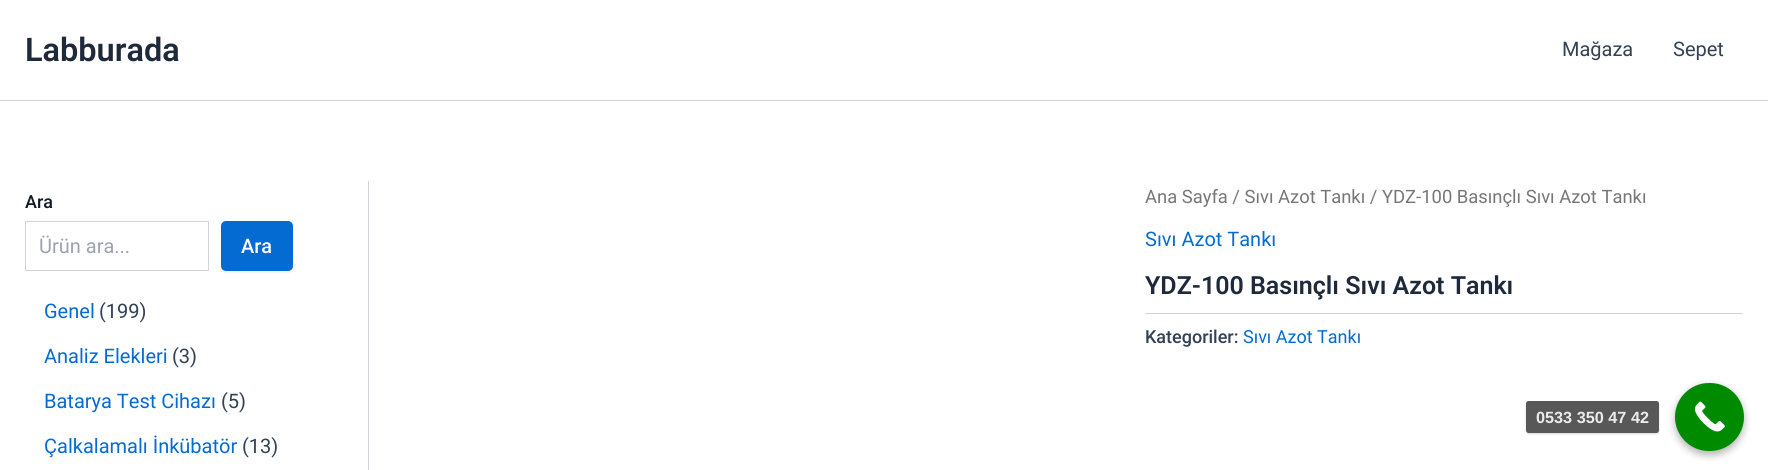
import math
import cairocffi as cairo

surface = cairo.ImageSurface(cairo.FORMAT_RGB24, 1768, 470)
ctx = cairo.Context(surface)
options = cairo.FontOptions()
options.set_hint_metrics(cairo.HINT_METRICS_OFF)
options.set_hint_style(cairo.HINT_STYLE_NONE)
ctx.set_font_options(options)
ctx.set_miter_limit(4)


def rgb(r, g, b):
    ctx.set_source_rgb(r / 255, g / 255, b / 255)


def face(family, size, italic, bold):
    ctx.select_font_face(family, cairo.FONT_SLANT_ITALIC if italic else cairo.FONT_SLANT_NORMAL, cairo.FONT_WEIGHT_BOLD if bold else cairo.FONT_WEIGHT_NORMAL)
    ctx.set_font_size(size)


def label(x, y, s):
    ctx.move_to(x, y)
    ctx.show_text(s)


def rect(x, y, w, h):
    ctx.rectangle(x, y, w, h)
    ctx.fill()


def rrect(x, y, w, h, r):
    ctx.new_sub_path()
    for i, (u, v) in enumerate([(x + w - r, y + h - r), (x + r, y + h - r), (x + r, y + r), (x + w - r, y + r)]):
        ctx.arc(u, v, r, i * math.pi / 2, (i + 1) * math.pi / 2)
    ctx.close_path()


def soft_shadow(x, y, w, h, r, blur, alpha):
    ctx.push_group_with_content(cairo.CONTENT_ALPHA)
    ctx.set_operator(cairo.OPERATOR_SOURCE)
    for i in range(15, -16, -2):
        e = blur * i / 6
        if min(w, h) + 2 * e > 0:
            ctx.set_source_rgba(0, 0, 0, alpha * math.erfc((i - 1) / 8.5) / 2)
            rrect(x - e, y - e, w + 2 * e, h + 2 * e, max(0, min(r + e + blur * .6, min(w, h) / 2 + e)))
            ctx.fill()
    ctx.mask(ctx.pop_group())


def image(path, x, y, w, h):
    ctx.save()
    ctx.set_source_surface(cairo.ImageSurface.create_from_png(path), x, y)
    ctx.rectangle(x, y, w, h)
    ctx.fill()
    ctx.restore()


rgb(255, 255, 255)
ctx.paint()
rgb(209, 213, 219)
rect(0, 100, 1768, 1)
face('Roboto SemiBold', 32.5, 0, 0)
rgb(30, 41, 59)
label(25, 61, 'Labburada')
face('Roboto', 20, 0, 0)
rgb(51, 65, 85)
label(1562, 56, 'Mağaza')
label(1673, 56, 'Sepet')
rgb(209, 213, 219)
rect(368, 181, 1, 289)
face('Roboto Medium', 18, 0, 0)
rgb(17, 24, 39)
label(25, 208, 'Ara')
ctx.rectangle(25.5, 221.5, 183, 49)
rgb(209, 213, 219)
ctx.set_line_width(1)
ctx.stroke()
face('Roboto', 20, 0, 0)
rgb(156, 163, 175)
label(39, 253, 'Ürün ara...')
rgb(0, 0, 0)
soft_shadow(221, 223, 72, 50, 5, 1, 0.05)
rgb(4, 107, 210)
rrect(221, 221, 72, 50, 5)
ctx.fill()
face('Roboto Medium', 20, 0, 0)
rgb(255, 255, 255)
label(241, 253, 'Ara')
face('Roboto', 20, 0, 0)
rgb(4, 107, 210)
label(44, 318, 'Genel')
rgb(51, 65, 85)
label(99, 318, '(199)')
rgb(4, 107, 210)
label(44, 363, 'Analiz Elekleri')
rgb(51, 65, 85)
label(172, 363, '(3)')
rgb(4, 107, 210)
label(44, 408, 'Batarya Test Cihazı')
rgb(51, 65, 85)
label(221, 408, '(5)')
rgb(4, 107, 210)
label(44, 453, 'Çalkalamalı İnkübatör')
rgb(51, 65, 85)
label(242, 453, '(13)')
face('Roboto', 18.4, 0, 0)
rgb(119, 119, 119)
label(1145, 203, 'Ana Sayfa / Sıvı Azot Tankı / YDZ-100 Basınçlı Sıvı Azot Tankı')
face('Roboto', 20, 0, 0)
rgb(4, 107, 210)
label(1145, 246, 'Sıvı Azot Tankı')
face('Roboto SemiBold', 25, 0, 0)
rgb(30, 41, 59)
label(1145, 294, 'YDZ-100 Basınçlı Sıvı Azot Tankı')
rgb(209, 213, 219)
rect(1145, 313, 598, 1)
face('Roboto Medium', 18, 0, 0)
rgb(51, 65, 85)
label(1145, 343, 'Kategoriler:')
face('Roboto', 18, 0, 0)
rgb(4, 107, 210)
label(1243, 343, 'Sıvı Azot Tankı')
rgb(0, 0, 0)
soft_shadow(1675, 386, 69, 69, 34.5, 4, 0.3)
rgb(0, 138, 0)
rrect(1675, 383, 69, 68, 34)
ctx.fill()
image('image0.png', 1694, 401, 31, 31)
ctx.save()
ctx.set_fill_rule(cairo.FILL_RULE_EVEN_ODD)
ctx.new_path()
ctx.move_to(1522, 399)
ctx.line_to(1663, 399)
ctx.line_to(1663, 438)
ctx.line_to(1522, 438)
ctx.close_path()
ctx.move_to(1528.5, 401)
ctx.line_to(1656.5, 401)
ctx.curve_to(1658, 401, 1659, 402, 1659, 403.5)
ctx.line_to(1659, 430.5)
ctx.curve_to(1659, 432, 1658, 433, 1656.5, 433)
ctx.line_to(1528.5, 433)
ctx.curve_to(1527, 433, 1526, 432, 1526, 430.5)
ctx.line_to(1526, 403.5)
ctx.curve_to(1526, 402, 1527, 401, 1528.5, 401)
ctx.close_path()
ctx.clip()
rgb(0, 0, 0)
soft_shadow(1526, 403, 133, 31, 2.5, 1, 0.15)
ctx.restore()
ctx.set_source_rgba(0.275, 0.275, 0.275, 0.9)
rrect(1526, 401, 133, 32, 2.5)
ctx.fill()
face('Liberation Sans', 16.25, 0, 1)
rgb(236, 236, 236)
label(1536, 423, '0533 350 47 42')
surface.write_to_png('render.png')
